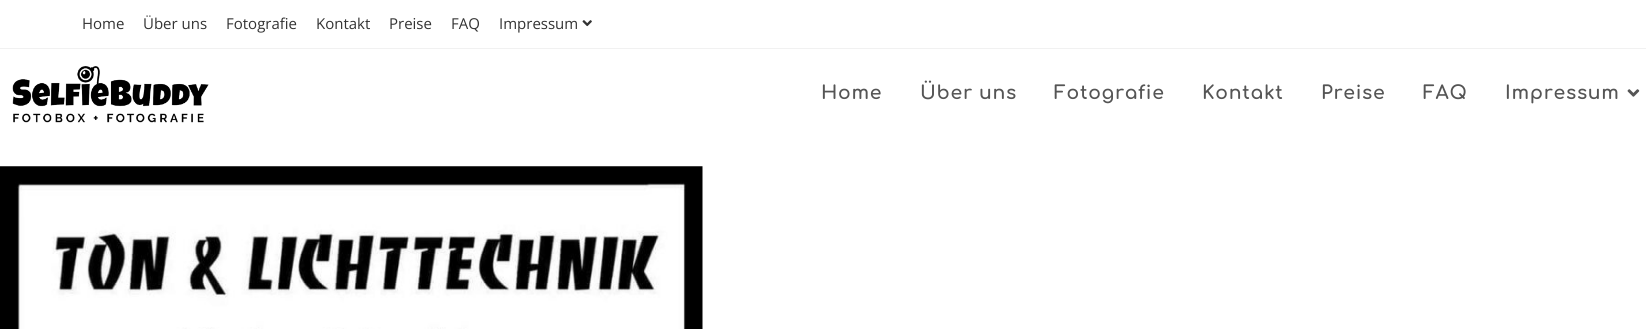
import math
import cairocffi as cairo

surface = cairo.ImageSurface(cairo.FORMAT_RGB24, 1646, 329)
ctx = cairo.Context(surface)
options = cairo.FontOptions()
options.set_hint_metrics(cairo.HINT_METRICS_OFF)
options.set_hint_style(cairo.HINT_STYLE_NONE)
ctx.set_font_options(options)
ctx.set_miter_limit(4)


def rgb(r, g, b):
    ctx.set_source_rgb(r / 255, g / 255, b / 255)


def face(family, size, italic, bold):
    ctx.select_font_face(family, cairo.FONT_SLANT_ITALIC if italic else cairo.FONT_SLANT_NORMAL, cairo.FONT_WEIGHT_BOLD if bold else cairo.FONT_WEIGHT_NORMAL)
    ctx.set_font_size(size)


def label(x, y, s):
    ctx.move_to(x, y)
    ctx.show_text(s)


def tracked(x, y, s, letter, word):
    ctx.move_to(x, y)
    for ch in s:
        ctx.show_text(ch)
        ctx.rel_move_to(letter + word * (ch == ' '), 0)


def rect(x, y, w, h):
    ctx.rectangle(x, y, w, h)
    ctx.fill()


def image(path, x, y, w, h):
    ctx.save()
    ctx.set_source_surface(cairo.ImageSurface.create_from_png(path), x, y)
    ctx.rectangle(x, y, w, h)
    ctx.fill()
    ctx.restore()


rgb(255, 255, 255)
ctx.paint()
rgb(241, 241, 241)
rect(0, 48, 1646, 1)
face('Open Sans', 15, 0, 0)
rgb(51, 51, 51)
label(82, 29, 'Home')
label(143, 29, 'Über uns')
label(226, 29, 'Fotografie')
label(316, 29, 'Kontakt')
label(389, 29, 'Preise')
label(451, 29, 'FAQ')
label(499, 29, 'Impressum')
image('image0.png', 582, 20, 10, 7)
image('image1.png', 12, 66, 197, 57)
face('Comfortaa', 18.75, 0, 1)
rgb(85, 85, 85)
tracked(821, 99, 'Home', 0.75, 0)
tracked(920, 99, 'Über uns', 0.75, 0)
tracked(1054, 99, 'Fotografie', 0.75, 0)
tracked(1202, 99, 'Kontakt', 0.75, 0)
tracked(1321, 99, 'Preise', 0.75, 0)
tracked(1423, 99, 'FAQ', 0.75, 0)
tracked(1505, 99, 'Impressum', 0.75, 0)
image('image2.png', 1627, 89, 13, 8)
image('image3.png', 0, 166, 703, 163)
surface.write_to_png('render.png')
